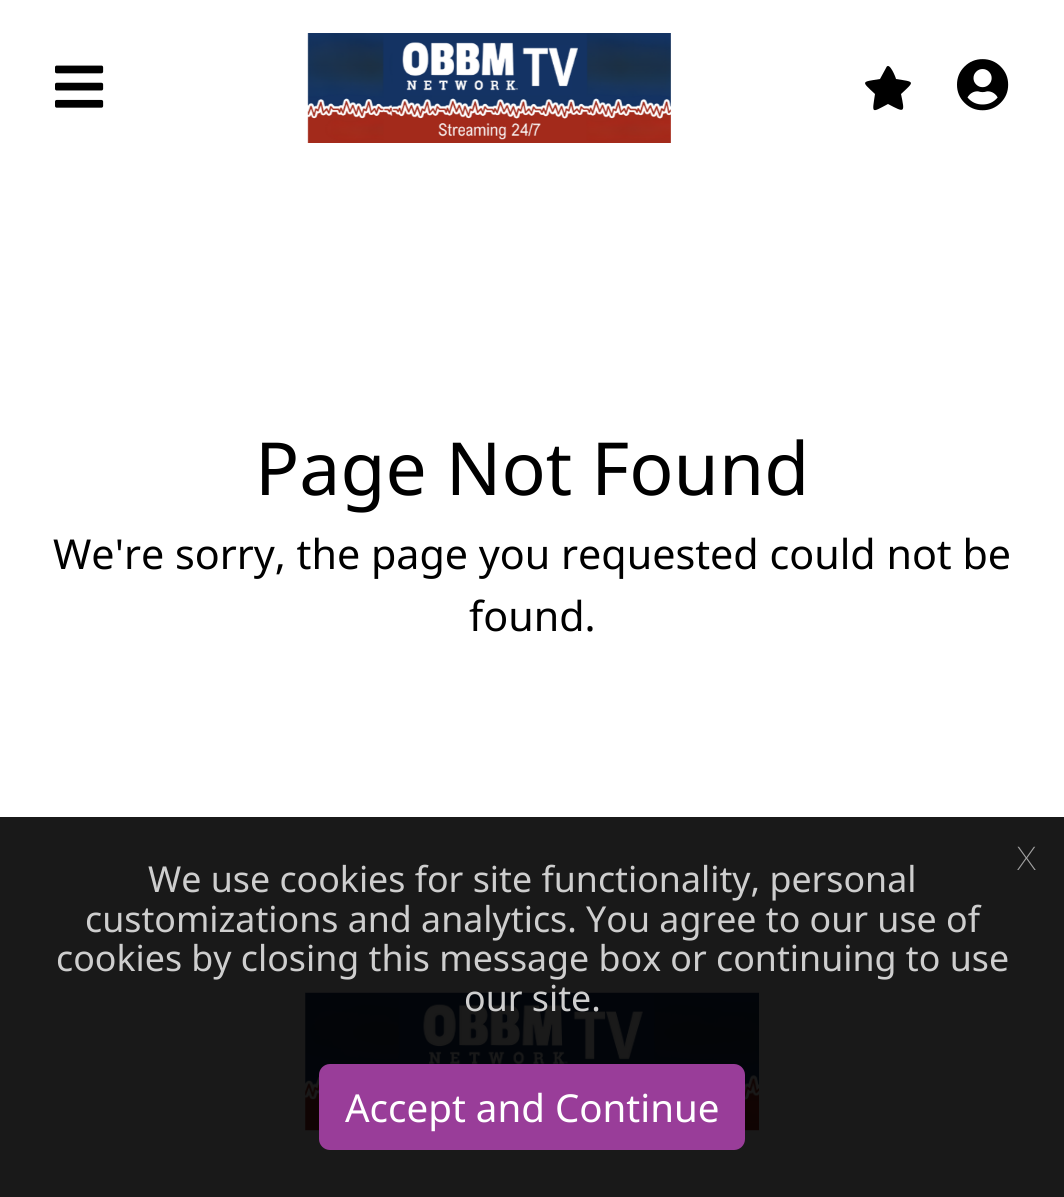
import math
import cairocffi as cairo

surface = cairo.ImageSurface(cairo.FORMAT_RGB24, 1064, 1197)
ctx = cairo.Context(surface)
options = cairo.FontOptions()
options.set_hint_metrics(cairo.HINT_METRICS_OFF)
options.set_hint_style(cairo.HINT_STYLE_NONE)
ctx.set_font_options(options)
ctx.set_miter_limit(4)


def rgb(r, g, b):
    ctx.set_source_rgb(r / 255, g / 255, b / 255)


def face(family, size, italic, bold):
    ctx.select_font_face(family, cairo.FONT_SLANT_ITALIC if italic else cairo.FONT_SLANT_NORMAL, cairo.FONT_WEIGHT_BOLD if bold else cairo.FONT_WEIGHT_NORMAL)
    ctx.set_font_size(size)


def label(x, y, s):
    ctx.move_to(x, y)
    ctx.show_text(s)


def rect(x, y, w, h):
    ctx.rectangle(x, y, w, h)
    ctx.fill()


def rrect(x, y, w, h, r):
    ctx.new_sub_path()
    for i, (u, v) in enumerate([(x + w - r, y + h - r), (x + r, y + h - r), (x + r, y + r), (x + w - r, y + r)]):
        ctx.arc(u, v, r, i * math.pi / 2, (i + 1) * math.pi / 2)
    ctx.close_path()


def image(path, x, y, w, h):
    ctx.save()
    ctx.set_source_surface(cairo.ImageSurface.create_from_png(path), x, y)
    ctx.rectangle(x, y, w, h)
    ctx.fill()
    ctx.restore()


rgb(255, 255, 255)
ctx.paint()
rgb(25, 25, 25)
rect(0, 817, 1064, 380)
image('image0.png', 55, 65, 49, 43)
image('image1.png', 307, 33, 364, 110)
rgb(0, 0, 0)
ctx.new_path()
ctx.move_to(886, 68)
ctx.curve_to(889, 60, 896, 78, 896, 79)
ctx.curve_to(915, 82, 915, 81, 901, 94)
ctx.curve_to(905, 113, 905, 113, 888, 104)
ctx.curve_to(871, 113, 872, 114, 875, 94)
ctx.curve_to(861, 81, 861, 82, 880, 79)
ctx.close_path()
ctx.fill()
image('image2.png', 957, 59, 52, 52)
face('Noto Sans', 73.25, 0, 0)
label(255, 495, 'Page Not Found')
face('Noto Sans', 41.25, 0, 0)
label(53, 569, 'We\'re sorry, the page you requested could not be')
label(469, 631, 'found.')
image('image3.png', 305, 992, 454, 139)
face('Noto Sans Thin', 44, 0, 0)
rgb(162, 162, 162)
label(1016, 870, 'x')
face('Noto Sans', 35.75, 0, 0)
rgb(206, 206, 206)
label(148, 892, 'We use cookies for site functionality, personal')
label(85, 932, 'customizations and analytics. You agree to our use of')
label(56, 971, 'cookies by closing this message box or continuing to use')
label(464, 1011, 'our site.')
rgb(153, 61, 153)
rrect(320.5, 1065.5, 423, 83, 9.5)
ctx.fill_preserve()
ctx.set_line_width(3)
ctx.stroke()
face('Noto Sans', 38.5, 0, 0)
rgb(255, 255, 255)
label(345, 1122, 'Accept and Continue')
surface.write_to_png('render.png')
